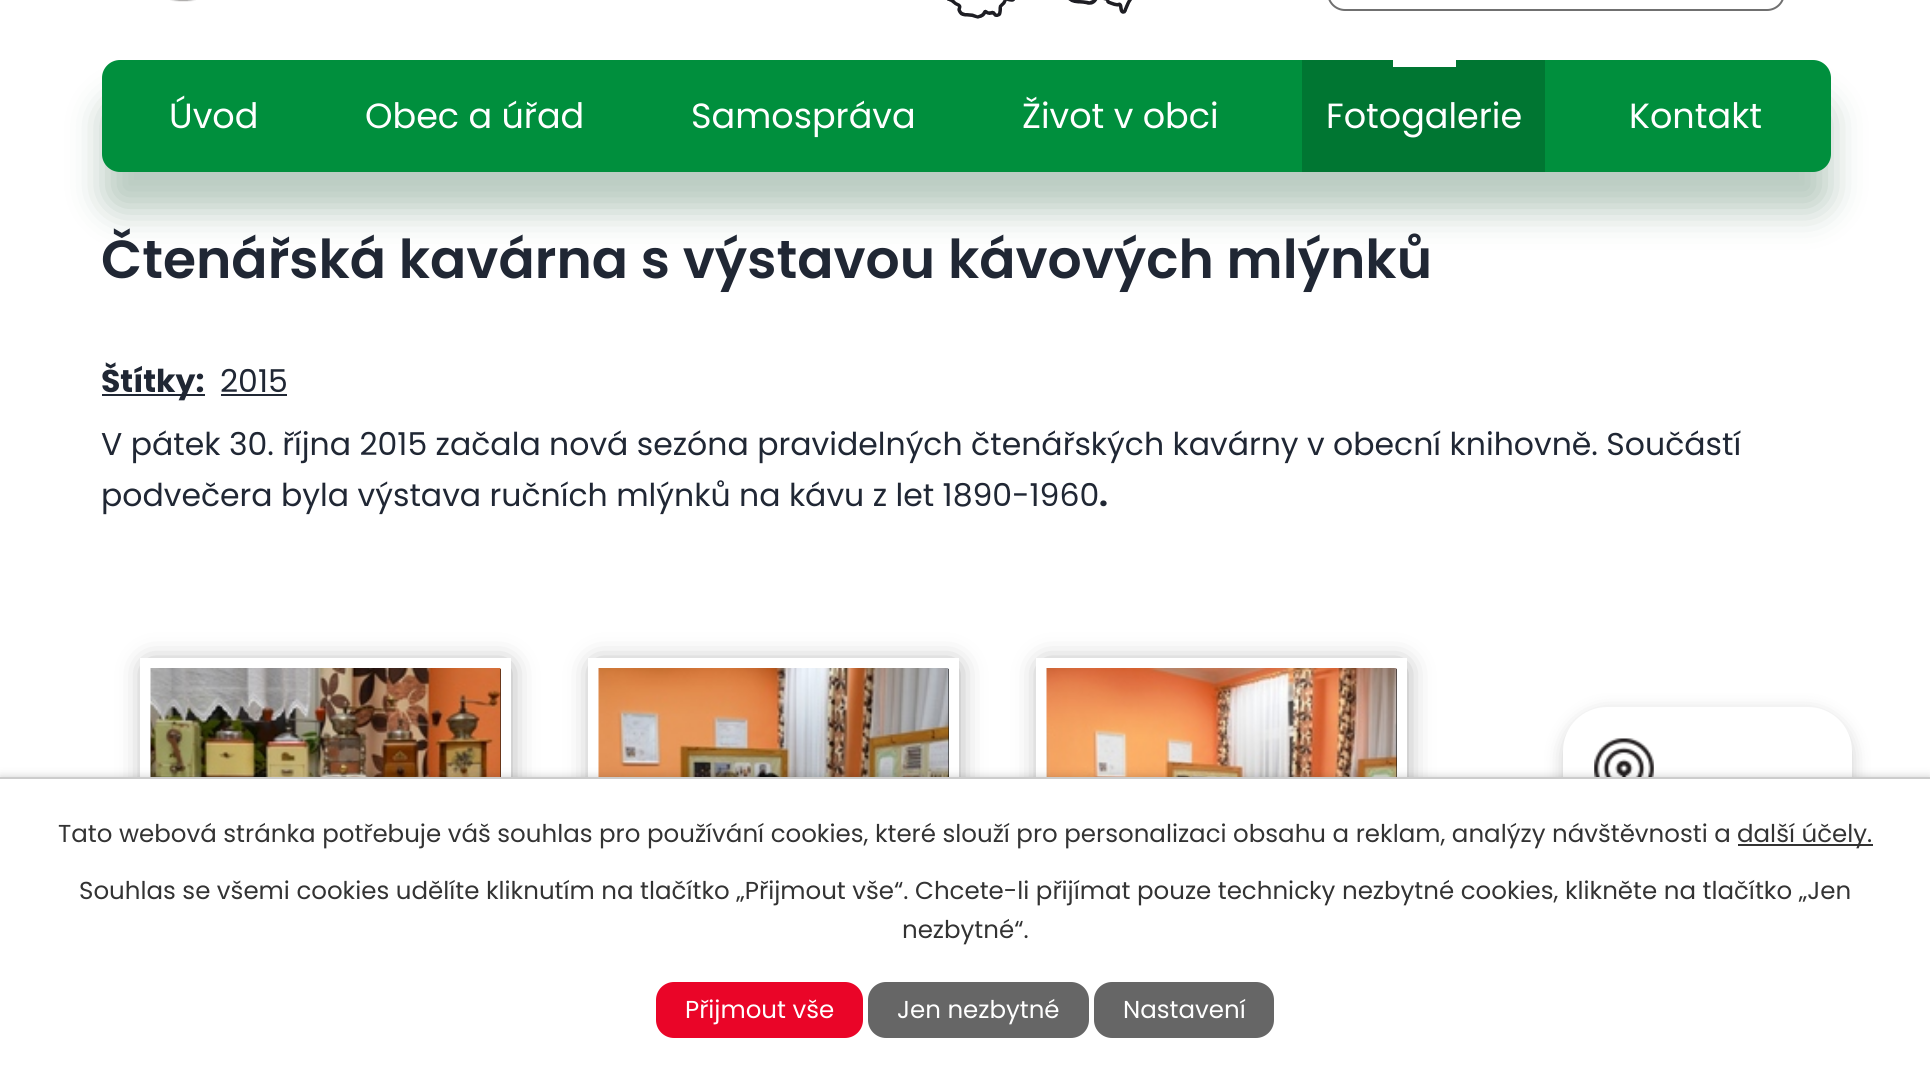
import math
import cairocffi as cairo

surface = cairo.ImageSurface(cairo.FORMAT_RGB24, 1930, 1071)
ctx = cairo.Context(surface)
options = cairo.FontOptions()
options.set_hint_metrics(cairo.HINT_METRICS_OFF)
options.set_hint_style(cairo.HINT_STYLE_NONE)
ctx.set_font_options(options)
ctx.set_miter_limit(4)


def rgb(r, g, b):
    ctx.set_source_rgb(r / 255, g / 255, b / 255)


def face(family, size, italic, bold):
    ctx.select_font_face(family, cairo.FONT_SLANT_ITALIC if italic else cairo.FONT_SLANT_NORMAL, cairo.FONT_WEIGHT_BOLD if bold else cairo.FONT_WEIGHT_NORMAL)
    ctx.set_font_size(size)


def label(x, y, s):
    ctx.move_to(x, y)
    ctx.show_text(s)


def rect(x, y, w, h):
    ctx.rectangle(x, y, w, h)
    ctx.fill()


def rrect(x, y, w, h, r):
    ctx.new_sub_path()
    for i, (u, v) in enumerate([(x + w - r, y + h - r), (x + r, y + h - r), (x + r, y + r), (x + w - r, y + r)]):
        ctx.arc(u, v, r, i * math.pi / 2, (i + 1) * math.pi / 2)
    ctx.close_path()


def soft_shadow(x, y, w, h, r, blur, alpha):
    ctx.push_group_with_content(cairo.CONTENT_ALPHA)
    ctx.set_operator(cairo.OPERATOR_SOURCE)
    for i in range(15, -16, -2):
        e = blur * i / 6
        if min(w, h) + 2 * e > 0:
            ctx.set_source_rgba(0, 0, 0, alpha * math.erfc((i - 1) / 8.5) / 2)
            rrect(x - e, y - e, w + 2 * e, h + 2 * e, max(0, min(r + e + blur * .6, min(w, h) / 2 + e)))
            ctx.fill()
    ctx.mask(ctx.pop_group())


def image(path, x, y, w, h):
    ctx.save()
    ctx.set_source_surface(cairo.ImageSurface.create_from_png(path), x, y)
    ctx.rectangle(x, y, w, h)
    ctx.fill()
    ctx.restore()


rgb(255, 255, 255)
ctx.paint()
image('image0.png', 170, 0, 26, 2)
image('image1.png', 947, 0, 185, 19)
rrect(1328, -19, 456, 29, 17)
rgb(112, 112, 112)
ctx.stroke()
rgb(9, 71, 35)
soft_shadow(102, 100, 1729, 112, 18, 17.5, 0.28)
rgb(0, 143, 61)
rrect(102, 60, 1729, 112, 18)
ctx.fill()
face('Poppins', 35, 0, 0)
rgb(255, 255, 255)
label(169, 128, 'Úvod')
label(365, 128, 'Obec a úřad')
label(691, 128, 'Samospráva')
label(1022, 128, 'Život v obci')
rgb(0, 118, 50)
rect(1302, 60, 243, 112)
rgb(255, 255, 255)
rect(1393, 60, 63, 7)
label(1326, 128, 'Fotogalerie')
label(1629, 128, 'Kontakt')
face('Poppins SemiBold', 53.55, 0, 0)
rgb(32, 39, 52)
label(101, 278, 'Čtenářská kavárna s výstavou kávových mlýnků')
rect(102, 394, 103, 2)
face('Poppins', 31.5, 0, 1)
label(101, 392, 'Štítky:')
face('Poppins', 31.5, 0, 0)
label(220, 392, '2015')
rect(221, 394, 66, 2)
label(101, 455, 'V pátek 30. října 2015 začala nová sezóna pravidelných čtenářských kavárny v obecní knihovně. Součástí')
label(101, 506, 'podvečera byla výstava ručních mlýnků na kávu z let 1890-1960')
face('Poppins', 31.5, 0, 1)
label(1099, 506, '.')
ctx.save()
ctx.set_fill_rule(cairo.FILL_RULE_EVEN_ODD)
ctx.new_path()
ctx.move_to(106, 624)
ctx.line_to(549, 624)
ctx.line_to(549, 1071)
ctx.line_to(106, 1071)
ctx.close_path()
ctx.move_to(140, 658)
ctx.line_to(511, 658)
ctx.line_to(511, 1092)
ctx.line_to(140, 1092)
ctx.close_path()
ctx.clip()
rgb(136, 136, 136)
soft_shadow(149, 667, 357, 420, 0, 14, 1)
ctx.restore()
rgb(0, 0, 0)
rect(500, 669, 1, 108)
image('image2.png', 150, 668, 351, 109)
ctx.save()
ctx.set_fill_rule(cairo.FILL_RULE_EVEN_ODD)
ctx.new_path()
ctx.move_to(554, 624)
ctx.line_to(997, 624)
ctx.line_to(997, 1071)
ctx.line_to(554, 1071)
ctx.close_path()
ctx.move_to(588, 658)
ctx.line_to(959, 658)
ctx.line_to(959, 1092)
ctx.line_to(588, 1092)
ctx.close_path()
ctx.clip()
rgb(136, 136, 136)
soft_shadow(597, 667, 357, 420, 0, 14, 1)
ctx.restore()
rect(948, 669, 1, 108)
image('image3.png', 598, 668, 351, 109)
ctx.save()
ctx.set_fill_rule(cairo.FILL_RULE_EVEN_ODD)
ctx.new_path()
ctx.move_to(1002, 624)
ctx.line_to(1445, 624)
ctx.line_to(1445, 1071)
ctx.line_to(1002, 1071)
ctx.close_path()
ctx.move_to(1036, 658)
ctx.line_to(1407, 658)
ctx.line_to(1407, 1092)
ctx.line_to(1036, 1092)
ctx.close_path()
ctx.clip()
rgb(136, 136, 136)
soft_shadow(1045, 667, 357, 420, 0, 14, 1)
ctx.restore()
rect(1396, 669, 1, 108)
image('image4.png', 1046, 668, 351, 109)
rgb(0, 0, 0)
soft_shadow(1563, 712, 289, 286, 44, 9, 0.2)
rgb(255, 255, 255)
rrect(1563, 707, 289, 285, 44)
ctx.fill()
image('image5.png', 1594, 738, 60, 39)
rgb(0, 0, 0)
soft_shadow(0, 777, 1930, 294, 0, 4.5, 0.2)
rgb(255, 255, 255)
rect(0, 779, 1930, 292)
rgb(204, 204, 204)
rect(0, 777, 1930, 2)
face('Poppins', 24.5, 0, 0)
rgb(51, 51, 51)
label(58, 842, 'Tato webová stránka potřebuje váš souhlas pro používání cookies, které slouží pro personalizaci obsahu a reklam, analýzy návštěvnosti a')
rect(1738, 844, 135, 2)
label(1737, 842, 'další účely.')
label(79, 899, 'Souhlas se všemi cookies udělíte kliknutím na tlačítko „Přijmout vše“. Chcete-li přijímat pouze technicky nezbytné cookies, klikněte na tlačítko „Jen')
label(902, 938, 'nezbytné“.')
rgb(234, 5, 40)
rrect(656, 982, 207, 56, 18)
ctx.fill()
rgb(255, 255, 255)
label(685, 1018, 'Přijmout vše')
rgb(102, 102, 102)
rrect(868, 982, 221, 56, 18)
ctx.fill()
rgb(255, 255, 255)
label(897, 1018, 'Jen nezbytné')
rgb(102, 102, 102)
rrect(1094, 982, 180, 56, 18)
ctx.fill()
rgb(255, 255, 255)
label(1123, 1018, 'Nastavení')
surface.write_to_png('render.png')
